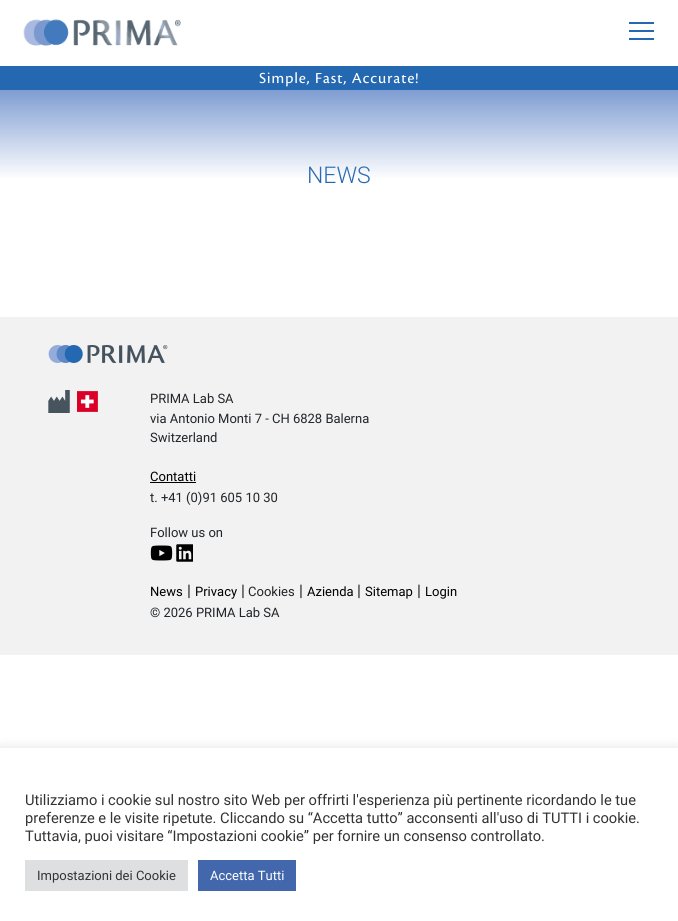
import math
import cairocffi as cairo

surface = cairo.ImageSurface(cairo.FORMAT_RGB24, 678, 921)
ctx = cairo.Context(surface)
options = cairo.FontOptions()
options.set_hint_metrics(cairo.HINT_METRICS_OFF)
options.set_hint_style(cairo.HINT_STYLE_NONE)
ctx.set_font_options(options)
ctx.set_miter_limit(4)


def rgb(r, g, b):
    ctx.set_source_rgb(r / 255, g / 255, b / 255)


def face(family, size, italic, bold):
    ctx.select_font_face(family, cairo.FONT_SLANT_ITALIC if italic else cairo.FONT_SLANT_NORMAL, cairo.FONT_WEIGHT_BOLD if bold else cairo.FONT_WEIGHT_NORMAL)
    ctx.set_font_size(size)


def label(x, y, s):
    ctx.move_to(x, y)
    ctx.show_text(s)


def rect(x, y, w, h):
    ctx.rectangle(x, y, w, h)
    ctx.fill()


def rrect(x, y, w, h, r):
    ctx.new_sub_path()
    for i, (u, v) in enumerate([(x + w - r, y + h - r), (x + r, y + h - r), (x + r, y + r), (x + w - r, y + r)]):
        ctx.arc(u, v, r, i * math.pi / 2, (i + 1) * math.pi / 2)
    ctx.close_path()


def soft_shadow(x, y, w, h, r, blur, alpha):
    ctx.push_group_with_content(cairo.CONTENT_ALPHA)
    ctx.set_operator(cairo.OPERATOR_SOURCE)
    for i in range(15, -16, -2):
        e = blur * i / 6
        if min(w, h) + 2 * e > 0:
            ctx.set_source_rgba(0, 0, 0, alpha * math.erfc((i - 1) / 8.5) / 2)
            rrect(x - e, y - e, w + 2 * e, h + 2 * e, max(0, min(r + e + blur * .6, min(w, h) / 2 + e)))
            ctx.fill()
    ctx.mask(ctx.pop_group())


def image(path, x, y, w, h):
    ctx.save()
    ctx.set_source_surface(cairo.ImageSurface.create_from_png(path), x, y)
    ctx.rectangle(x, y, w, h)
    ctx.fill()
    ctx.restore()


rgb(255, 255, 255)
ctx.paint()
image('image0.png', 23, 19, 158, 27)
rgb(36, 104, 177)
rect(629, 22, 25, 2)
rect(629, 30, 25, 2)
rect(629, 38, 25, 2)
rect(0, 66, 678, 24)
image('image1.png', 259, 72, 159, 15)
face('Roboto Light', 23, 0, 0)
label(307, 183, 'NEWS')
gradient = cairo.LinearGradient(339, 190, 339, 90)
gradient.add_color_stop_rgba(0.1, 0.498, 0.616, 0.824, 0)
gradient.add_color_stop_rgba(1, 0.498, 0.616, 0.824, 1)
ctx.set_source(gradient)
rect(0, 90, 678, 88)
rgb(242, 242, 242)
rect(0, 317, 678, 338)
image('image2.png', 48, 345, 120, 18)
image('image3.png', 48, 390, 50, 23)
face('Roboto', 13, 0, 0)
rgb(33, 37, 41)
label(150, 403, 'PRIMA Lab SA')
label(150, 423, 'via Antonio Monti 7 - CH 6828 Balerna')
label(150, 442, 'Switzerland')
rgb(0, 0, 0)
label(150, 481, 'Contatti')
rect(150, 482, 46, 1)
rgb(33, 37, 41)
label(150, 502, 't. +41 (0)91 605 10 30')
label(150, 537, 'Follow us on')
image('image4.png', 150, 545, 23, 16)
image('image5.png', 176, 544, 17, 18)
rgb(0, 0, 0)
label(150, 596, 'News')
face('Roboto', 16, 0, 0)
rgb(33, 37, 41)
label(187, 596, '|')
face('Roboto', 13, 0, 0)
rgb(0, 0, 0)
label(195, 596, 'Privacy')
face('Roboto', 16, 0, 0)
rgb(33, 37, 41)
label(241, 596, '|')
face('Roboto', 13, 0, 0)
label(248, 596, 'Cookies')
face('Roboto', 16, 0, 0)
label(299, 596, '|')
face('Roboto', 13, 0, 0)
rgb(0, 0, 0)
label(307, 596, 'Azienda')
face('Roboto', 16, 0, 0)
rgb(33, 37, 41)
label(357, 596, '|')
face('Roboto', 13, 0, 0)
rgb(0, 0, 0)
label(365, 596, 'Sitemap')
face('Roboto', 16, 0, 0)
rgb(33, 37, 41)
label(417, 596, '|')
face('Roboto', 13, 0, 0)
rgb(0, 0, 0)
label(425, 596, 'Login')
rgb(33, 37, 41)
label(150, 617, '© 2026 PRIMA Lab SA')
rgb(172, 171, 171)
soft_shadow(0, 747, 678, 173, 0, 5, 0.3)
rgb(255, 255, 255)
rect(0, 748, 678, 173)
face('Roboto', 14.65, 0, 0)
rgb(51, 51, 51)
label(25, 805, 'Utilizziamo i cookie sul nostro sito Web per offrirti l\'esperienza più pertinente ricordando le tue')
label(25, 823, 'preferenze e le visite ripetute. Cliccando su “Accetta tutto” acconsenti all\'uso di TUTTI i cookie.')
label(25, 841, 'Tuttavia, puoi visitare “Impostazioni cookie” per fornire un consenso controllato.')
rgb(222, 223, 224)
rect(25, 860, 163, 31)
face('Roboto', 13, 0, 0)
rgb(51, 51, 51)
label(37, 880, 'Impostazioni dei Cookie')
rgb(66, 103, 173)
rect(198, 860, 98, 31)
rgb(255, 255, 255)
label(210, 880, 'Accetta Tutti')
surface.write_to_png('render.png')
